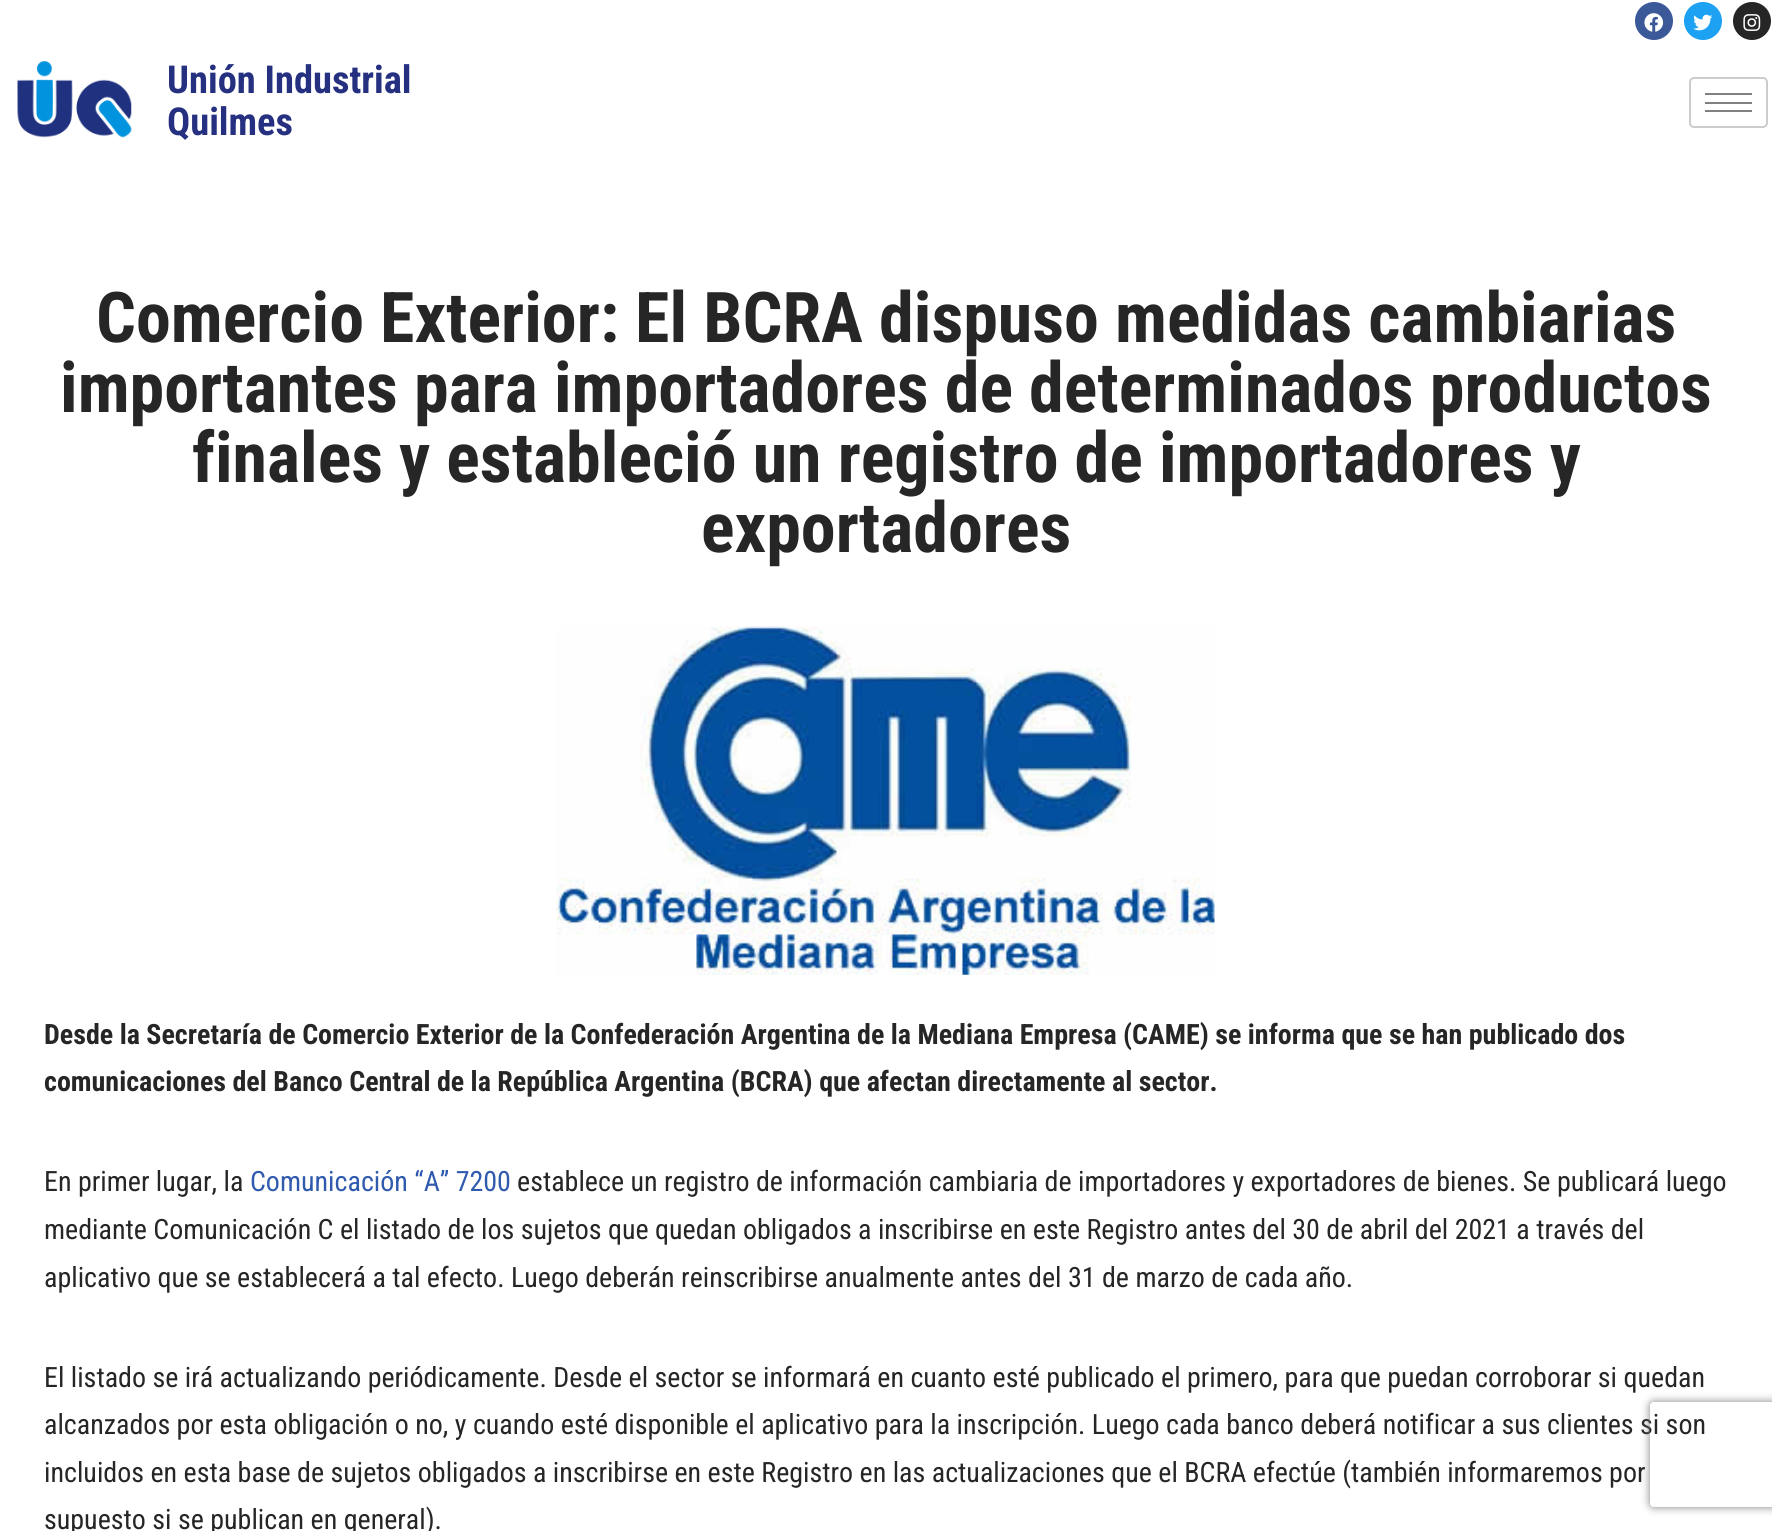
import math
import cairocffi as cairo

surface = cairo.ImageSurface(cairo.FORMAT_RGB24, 1772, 1531)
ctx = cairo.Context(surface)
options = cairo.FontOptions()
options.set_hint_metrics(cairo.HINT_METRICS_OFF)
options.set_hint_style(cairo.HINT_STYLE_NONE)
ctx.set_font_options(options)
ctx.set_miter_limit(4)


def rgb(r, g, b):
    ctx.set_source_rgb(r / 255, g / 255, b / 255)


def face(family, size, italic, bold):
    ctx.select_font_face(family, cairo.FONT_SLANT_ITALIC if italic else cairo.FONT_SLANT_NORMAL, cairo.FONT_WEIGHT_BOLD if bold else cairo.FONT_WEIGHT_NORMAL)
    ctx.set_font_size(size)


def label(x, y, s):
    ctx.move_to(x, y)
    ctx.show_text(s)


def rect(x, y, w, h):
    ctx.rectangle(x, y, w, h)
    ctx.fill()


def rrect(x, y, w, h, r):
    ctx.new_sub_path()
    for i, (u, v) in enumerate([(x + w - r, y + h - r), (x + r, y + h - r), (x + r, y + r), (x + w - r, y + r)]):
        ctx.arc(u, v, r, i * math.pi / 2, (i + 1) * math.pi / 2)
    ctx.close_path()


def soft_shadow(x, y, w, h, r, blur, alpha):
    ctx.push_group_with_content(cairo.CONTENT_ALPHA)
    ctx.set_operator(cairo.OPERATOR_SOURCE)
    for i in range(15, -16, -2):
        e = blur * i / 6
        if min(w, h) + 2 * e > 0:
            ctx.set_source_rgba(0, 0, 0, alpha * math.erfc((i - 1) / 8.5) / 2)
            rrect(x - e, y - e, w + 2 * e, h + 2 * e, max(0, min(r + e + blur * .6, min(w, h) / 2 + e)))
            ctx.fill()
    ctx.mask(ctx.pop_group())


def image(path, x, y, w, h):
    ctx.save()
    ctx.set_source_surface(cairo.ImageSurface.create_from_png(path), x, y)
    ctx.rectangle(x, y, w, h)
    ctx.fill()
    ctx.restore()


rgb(255, 255, 255)
ctx.paint()
rgb(59, 89, 152)
ctx.arc(1654, 21, 19, 0, 2 * math.pi)
ctx.fill()
image('image0.png', 1644, 13, 20, 19)
rgb(29, 161, 242)
ctx.arc(1703, 21, 19, 0, 2 * math.pi)
ctx.fill()
image('image1.png', 1693, 14, 20, 17)
rgb(38, 38, 38)
ctx.arc(1752, 21, 19, 0, 2 * math.pi)
ctx.fill()
image('image2.png', 1743, 14, 18, 17)
image('image3.png', 17, 61, 115, 77)
face('Roboto Condensed', 38.5, 0, 1)
rgb(37, 49, 128)
label(167, 93, 'Unión Industrial')
label(167, 135, 'Quilmes')
rrect(1690, 78, 77, 49, 4)
rgb(204, 204, 204)
ctx.stroke()
rgb(128, 128, 128)
rect(1705, 93, 47, 2)
rect(1705, 102, 47, 2)
rect(1705, 110, 47, 2)
face('Roboto Condensed', 70, 0, 1)
rgb(39, 38, 38)
label(96, 342, 'Comercio Exterior: El BCRA dispuso medidas cambiarias')
label(60, 412, 'importantes para importadores de determinados productos')
label(192, 482, 'finales y estableció un registro de importadores y')
label(701, 552, 'exportadores')
image('image4.png', 556, 626, 659, 349)
face('Roboto Condensed', 28, 0, 1)
label(44, 1044, 'Desde la Secretaría de Comercio Exterior de la Confederación Argentina de la Mediana Empresa (CAME) se informa que se han publicado dos')
label(44, 1091, 'comunicaciones del Banco Central de la República Argentina (BCRA) que afectan directamente al sector.')
face('Roboto Condensed', 28, 0, 0)
label(44, 1191, 'En primer lugar, la')
rgb(47, 90, 174)
label(250, 1191, 'Comunicación “A” 7200')
rgb(39, 38, 38)
label(517, 1191, 'establece un registro de información cambiaria de importadores y exportadores de bienes. Se publicará luego')
label(44, 1239, 'mediante Comunicación C el listado de los sujetos que quedan obligados a inscribirse en este Registro antes del 30 de abril del 2021 a través del')
label(44, 1287, 'aplicativo que se establecerá a tal efecto. Luego deberán reinscribirse anualmente antes del 31 de marzo de cada año.')
label(44, 1387, 'El listado se irá actualizando periódicamente. Desde el sector se informará en cuanto esté publicado el primero, para que puedan corroborar si quedan')
label(44, 1434, 'alcanzados por esta obligación o no, y cuando esté disponible el aplicativo para la inscripción. Luego cada banco deberá notificar a sus clientes si son')
label(44, 1482, 'incluidos en esta base de sujetos obligados a inscribirse en este Registro en las actualizaciones que el BCRA efectúe (también informaremos por')
label(44, 1529, 'supuesto si se publican en general).')
ctx.save()
ctx.set_fill_rule(cairo.FILL_RULE_EVEN_ODD)
ctx.new_path()
ctx.move_to(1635, 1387)
ctx.line_to(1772, 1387)
ctx.line_to(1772, 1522)
ctx.line_to(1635, 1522)
ctx.close_path()
ctx.move_to(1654, 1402)
ctx.line_to(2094, 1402)
ctx.curve_to(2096, 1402, 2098, 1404, 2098, 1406)
ctx.line_to(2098, 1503)
ctx.curve_to(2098, 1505, 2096, 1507, 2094, 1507)
ctx.line_to(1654, 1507)
ctx.curve_to(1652, 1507, 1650, 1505, 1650, 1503)
ctx.line_to(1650, 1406)
ctx.curve_to(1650, 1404, 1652, 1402, 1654, 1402)
ctx.close_path()
ctx.clip()
rgb(128, 128, 128)
soft_shadow(1650, 1402, 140, 105, 4, 4.5, 1)
ctx.restore()
surface.write_to_png('render.png')
